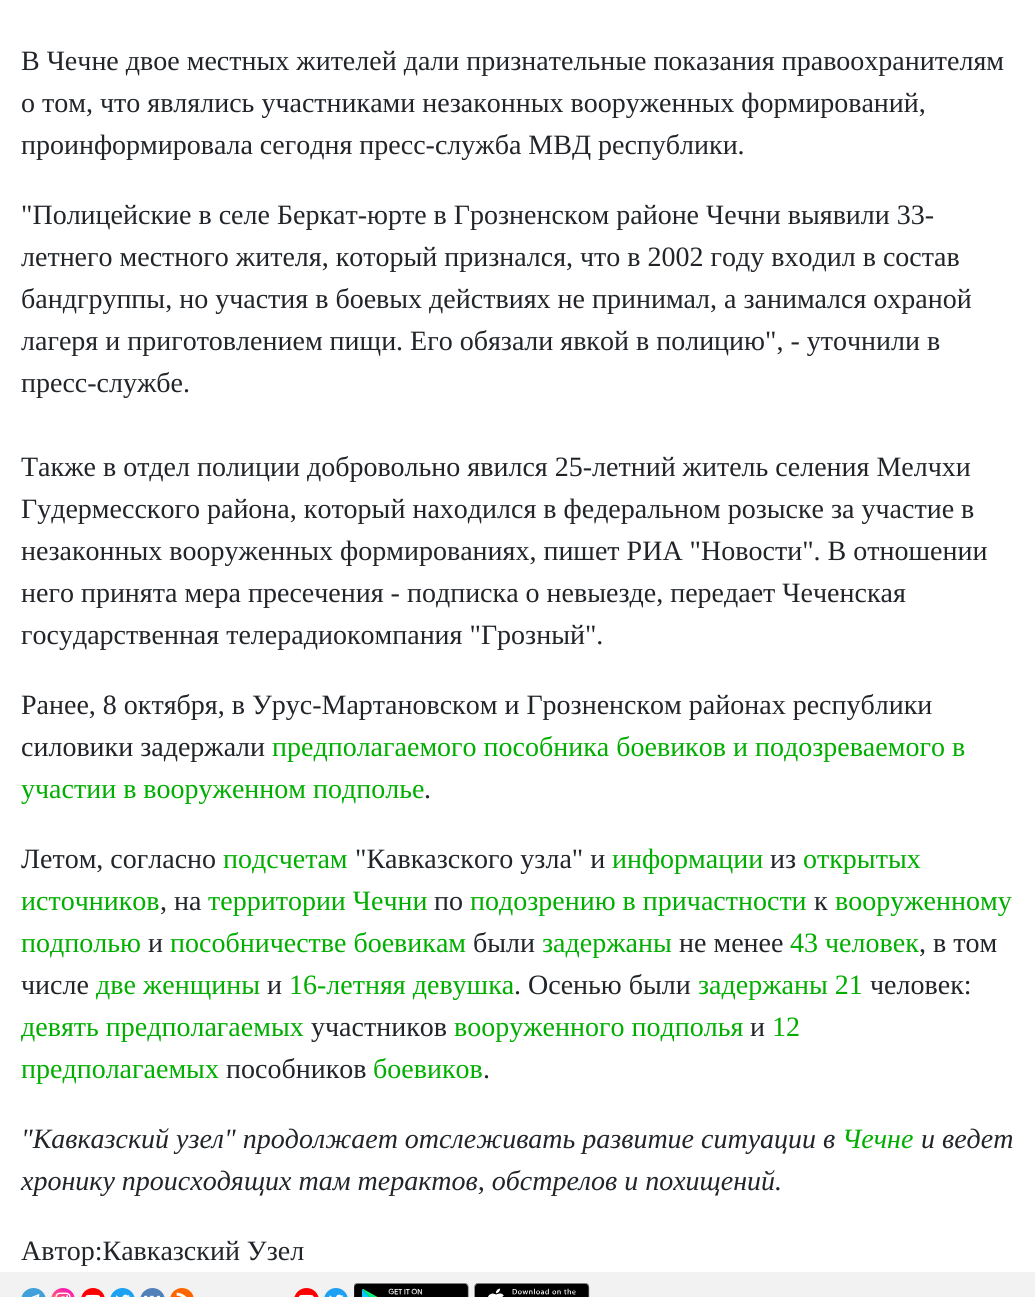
import math
import cairocffi as cairo

surface = cairo.ImageSurface(cairo.FORMAT_RGB24, 1035, 1297)
ctx = cairo.Context(surface)
options = cairo.FontOptions()
options.set_hint_metrics(cairo.HINT_METRICS_OFF)
options.set_hint_style(cairo.HINT_STYLE_NONE)
ctx.set_font_options(options)
ctx.set_miter_limit(4)


def rgb(r, g, b):
    ctx.set_source_rgb(r / 255, g / 255, b / 255)


def face(family, size, italic, bold):
    ctx.select_font_face(family, cairo.FONT_SLANT_ITALIC if italic else cairo.FONT_SLANT_NORMAL, cairo.FONT_WEIGHT_BOLD if bold else cairo.FONT_WEIGHT_NORMAL)
    ctx.set_font_size(size)


def label(x, y, s):
    ctx.move_to(x, y)
    ctx.show_text(s)


def rect(x, y, w, h):
    ctx.rectangle(x, y, w, h)
    ctx.fill()


def image(path, x, y, w, h):
    ctx.save()
    ctx.set_source_surface(cairo.ImageSurface.create_from_png(path), x, y)
    ctx.rectangle(x, y, w, h)
    ctx.fill()
    ctx.restore()


rgb(255, 255, 255)
ctx.paint()
face('Liberation Serif', 28, 0, 0)
rgb(33, 37, 41)
label(21, 70, 'В Чечне двое местных жителей дали признательные показания правоохранителям')
label(21, 112, 'о том, что являлись участниками незаконных вооруженных формирований,')
label(21, 154, 'проинформировала сегодня пресс-служба МВД республики.')
label(21, 224, '"Полицейские в селе Беркат-юрте в Грозненском районе Чечни выявили 33-')
label(21, 266, 'летнего местного жителя, который признался, что в 2002 году входил в состав')
label(21, 308, 'бандгруппы, но участия в боевых действиях не принимал, а занимался охраной')
label(21, 350, 'лагеря и приготовлением пищи. Его обязали явкой в полицию", - уточнили в')
label(21, 392, 'пресс-службе.')
label(21, 476, 'Также в отдел полиции добровольно явился 25-летний житель селения Мелчхи')
label(21, 518, 'Гудермесского района, который находился в федеральном розыске за участие в')
label(21, 560, 'незаконных вооруженных формированиях, пишет РИА "Новости". В отношении')
label(21, 602, 'него принята мера пресечения - подписка о невыезде, передает Чеченская')
label(21, 644, 'государственная телерадиокомпания "Грозный".')
label(21, 714, 'Ранее, 8 октября, в Урус-Мартановском и Грозненском районах республики')
label(21, 756, 'силовики задержали')
rgb(0, 174, 0)
label(272, 756, 'предполагаемого пособника боевиков и подозреваемого в')
label(21, 798, 'участии в вооруженном подполье')
rgb(33, 37, 41)
label(424, 798, '.')
label(21, 868, 'Летом, согласно')
rgb(0, 174, 0)
label(223, 868, 'подсчетам')
rgb(33, 37, 41)
label(355, 868, '"Кавказского узла" и')
rgb(0, 174, 0)
label(612, 868, 'информации')
rgb(33, 37, 41)
label(770, 868, 'из')
rgb(0, 174, 0)
label(803, 868, 'открытых')
label(21, 910, 'источников')
rgb(33, 37, 41)
label(160, 910, ', на')
rgb(0, 174, 0)
label(208, 910, 'территории Чечни')
rgb(33, 37, 41)
label(434, 910, 'по')
rgb(0, 174, 0)
label(470, 910, 'подозрению в причастности')
rgb(33, 37, 41)
label(814, 910, 'к')
rgb(0, 174, 0)
label(835, 910, 'вооруженному')
label(21, 952, 'подполью')
rgb(33, 37, 41)
label(148, 952, 'и')
rgb(0, 174, 0)
label(170, 952, 'пособничестве боевикам')
rgb(33, 37, 41)
label(473, 952, 'были')
rgb(0, 174, 0)
label(542, 952, 'задержаны')
rgb(33, 37, 41)
label(679, 952, 'не менее')
rgb(0, 174, 0)
label(790, 952, '43 человек')
rgb(33, 37, 41)
label(919, 952, ', в том')
label(21, 994, 'числе')
rgb(0, 174, 0)
label(96, 994, 'две женщины')
rgb(33, 37, 41)
label(267, 994, 'и')
rgb(0, 174, 0)
label(289, 994, '16-летняя девушка')
rgb(33, 37, 41)
label(514, 994, '. Осенью были')
rgb(0, 174, 0)
label(698, 994, 'задержаны 21')
rgb(33, 37, 41)
label(870, 994, 'человек:')
rgb(0, 174, 0)
label(21, 1036, 'девять предполагаемых')
rgb(33, 37, 41)
label(311, 1036, 'участников')
rgb(0, 174, 0)
label(454, 1036, 'вооруженного подполья')
rgb(33, 37, 41)
label(750, 1036, 'и')
rgb(0, 174, 0)
label(772, 1036, '12')
label(21, 1078, 'предполагаемых')
rgb(33, 37, 41)
label(226, 1078, 'пособников')
rgb(0, 174, 0)
label(373, 1078, 'боевиков')
rgb(33, 37, 41)
label(483, 1078, '.')
face('Liberation Serif', 28, 1, 0)
label(21, 1148, '"Кавказский узел" продолжает отслеживать развитие ситуации в')
rgb(0, 174, 0)
label(842, 1148, 'Чечне')
rgb(33, 37, 41)
label(921, 1148, 'и ведет')
label(21, 1190, 'хронику происходящих там терактов, обстрелов и похищений.')
face('Liberation Serif', 28, 0, 0)
label(21, 1260, 'Автор:Кавказский Узел')
rgb(242, 242, 242)
rect(0, 1272, 1035, 25)
image('image0.png', 21, 1288, 25, 9)
image('image1.png', 51, 1288, 24, 9)
image('image2.png', 81, 1288, 24, 9)
image('image3.png', 110, 1288, 25, 9)
image('image4.png', 140, 1288, 25, 9)
image('image5.png', 170, 1288, 24, 9)
image('image6.png', 294, 1288, 25, 9)
image('image7.png', 324, 1288, 24, 9)
image('image8.png', 354, 1283, 115, 14)
image('image9.png', 474, 1283, 116, 14)
surface.write_to_png('render.png')
